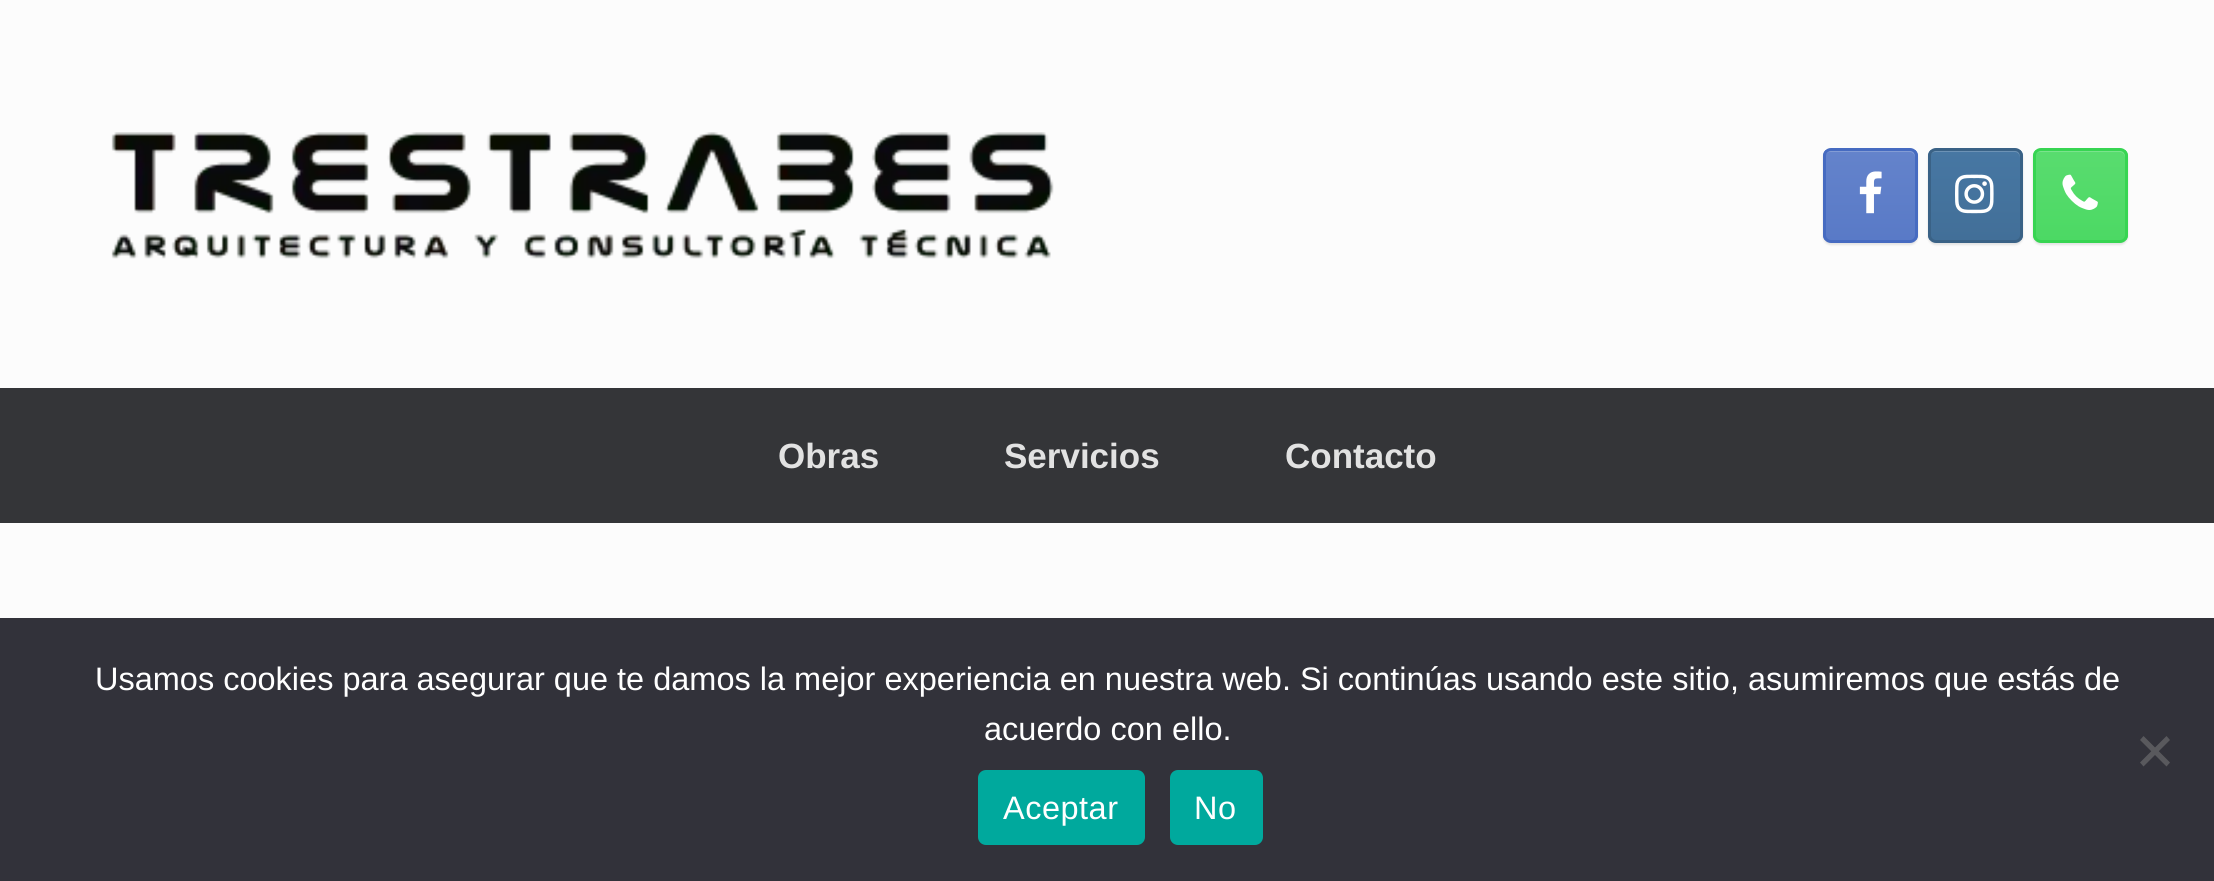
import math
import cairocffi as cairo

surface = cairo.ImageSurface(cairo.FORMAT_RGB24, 2214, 881)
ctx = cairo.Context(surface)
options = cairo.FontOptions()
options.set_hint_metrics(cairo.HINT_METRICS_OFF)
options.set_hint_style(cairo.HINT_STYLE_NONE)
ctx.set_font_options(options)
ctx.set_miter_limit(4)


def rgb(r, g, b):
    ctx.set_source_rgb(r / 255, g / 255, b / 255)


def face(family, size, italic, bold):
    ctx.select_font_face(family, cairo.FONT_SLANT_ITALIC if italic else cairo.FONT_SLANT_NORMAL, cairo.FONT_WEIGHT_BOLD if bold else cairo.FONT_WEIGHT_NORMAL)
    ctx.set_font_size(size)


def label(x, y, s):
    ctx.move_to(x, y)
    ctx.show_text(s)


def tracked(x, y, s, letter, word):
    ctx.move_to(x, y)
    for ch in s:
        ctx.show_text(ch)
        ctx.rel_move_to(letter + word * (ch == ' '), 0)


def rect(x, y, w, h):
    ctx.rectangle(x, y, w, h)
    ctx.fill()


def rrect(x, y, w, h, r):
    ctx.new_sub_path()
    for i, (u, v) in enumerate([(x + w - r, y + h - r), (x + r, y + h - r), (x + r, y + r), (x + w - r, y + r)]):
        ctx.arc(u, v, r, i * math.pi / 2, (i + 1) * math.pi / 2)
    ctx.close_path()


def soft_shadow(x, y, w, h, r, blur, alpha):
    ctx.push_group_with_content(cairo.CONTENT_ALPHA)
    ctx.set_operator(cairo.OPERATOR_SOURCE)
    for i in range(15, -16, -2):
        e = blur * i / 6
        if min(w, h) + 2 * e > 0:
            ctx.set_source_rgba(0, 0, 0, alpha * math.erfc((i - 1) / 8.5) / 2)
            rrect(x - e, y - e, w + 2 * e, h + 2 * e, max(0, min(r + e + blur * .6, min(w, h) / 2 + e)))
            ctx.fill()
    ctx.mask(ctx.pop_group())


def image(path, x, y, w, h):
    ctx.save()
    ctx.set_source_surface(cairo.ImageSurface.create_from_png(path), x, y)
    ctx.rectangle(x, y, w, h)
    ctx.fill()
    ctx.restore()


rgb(252, 252, 252)
ctx.paint()
image('image0.png', 111, 132, 943, 127)
rgb(0, 0, 0)
soft_shadow(1823, 150, 95, 95, 8, 1, 0.1)
ctx.save()
rrect(1823, 148, 95, 95, 8)
ctx.clip()
gradient = cairo.LinearGradient(1825, 240, 1825, 150)
gradient.add_color_stop_rgba(0, 0.349, 0.478, 0.78, 1)
gradient.add_color_stop_rgba(1, 0.392, 0.514, 0.796, 1)
ctx.set_source(gradient)
rect(1823, 150, 95, 90)
ctx.restore()
rgb(131, 156, 213)
ctx.new_path()
ctx.move_to(1830, 152)
ctx.line_to(1910, 152)
ctx.curve_to(1913, 152, 1915, 155, 1915, 158)
ctx.curve_to(1915, 147, 1907, 150, 1897, 150)
ctx.line_to(1843, 150)
ctx.curve_to(1833, 150, 1825, 147, 1825, 158)
ctx.curve_to(1825, 155, 1827, 152, 1830, 152)
ctx.close_path()
ctx.fill()
rrect(1824.5, 149.5, 92, 92, 6.5)
rgb(70, 107, 193)
ctx.set_line_width(3)
ctx.stroke()
image('image1.png', 1859, 171, 23, 43)
rgb(0, 0, 0)
soft_shadow(1928, 150, 95, 95, 8, 1, 0.1)
ctx.save()
rrect(1928, 148, 95, 95, 8)
ctx.clip()
gradient = cairo.LinearGradient(1930, 240, 1930, 150)
gradient.add_color_stop_rgba(0, 0.259, 0.435, 0.596, 1)
gradient.add_color_stop_rgba(1, 0.278, 0.467, 0.639, 1)
ctx.set_source(gradient)
rect(1928, 150, 95, 90)
ctx.restore()
rgb(108, 146, 181)
ctx.new_path()
ctx.move_to(1935, 152)
ctx.line_to(2015, 152)
ctx.curve_to(2018, 152, 2020, 155, 2020, 158)
ctx.curve_to(2020, 147, 2012, 150, 2002, 150)
ctx.line_to(1948, 150)
ctx.curve_to(1938, 150, 1930, 147, 1930, 158)
ctx.curve_to(1930, 155, 1932, 152, 1935, 152)
ctx.close_path()
ctx.fill()
rrect(1929.5, 149.5, 92, 92, 6.5)
rgb(58, 98, 134)
ctx.stroke()
image('image2.png', 1955, 174, 39, 40)
rgb(0, 0, 0)
soft_shadow(2033, 150, 95, 95, 8, 1, 0.1)
ctx.save()
rrect(2033, 148, 95, 95, 8)
ctx.clip()
gradient = cairo.LinearGradient(2035, 240, 2035, 150)
gradient.add_color_stop_rgba(0, 0.298, 0.851, 0.392, 1)
gradient.add_color_stop_rgba(1, 0.349, 0.863, 0.435, 1)
ctx.set_source(gradient)
rect(2033, 150, 95, 90)
ctx.restore()
rgb(122, 227, 140)
ctx.new_path()
ctx.move_to(2040, 152)
ctx.line_to(2120, 152)
ctx.curve_to(2123, 152, 2125, 155, 2125, 158)
ctx.curve_to(2125, 147, 2117, 150, 2107, 150)
ctx.line_to(2053, 150)
ctx.curve_to(2043, 150, 2035, 147, 2035, 158)
ctx.curve_to(2035, 155, 2037, 152, 2040, 152)
ctx.close_path()
ctx.fill()
rrect(2034.5, 149.5, 92, 92, 6.5)
rgb(55, 213, 82)
ctx.stroke()
image('image3.png', 2062, 174, 36, 36)
rgb(52, 53, 56)
rect(0, 388, 2214, 135)
face('Liberation Sans', 35, 0, 1)
rgb(226, 226, 226)
label(778, 468, 'Obras')
label(1004, 468, 'Servicios')
label(1285, 468, 'Contacto')
rgb(50, 50, 58)
rect(0, 618, 2214, 263)
face('Liberation Sans', 32.5, 0, 0)
rgb(255, 255, 255)
label(95, 690, 'Usamos cookies para asegurar que te damos la mejor experiencia en nuestra web. Si continúas usando este sitio, asumiremos que estás de')
label(984, 740, 'acuerdo con ello.')
rgb(89, 89, 93)
ctx.new_path()
ctx.move_to(2166.5, 736)
ctx.line_to(2170, 740)
ctx.line_to(2143.5, 766.5)
ctx.line_to(2140, 762.5)
ctx.close_path()
ctx.fill()
ctx.new_path()
ctx.move_to(2140, 740)
ctx.line_to(2143.5, 736)
ctx.line_to(2170, 762.5)
ctx.line_to(2166.5, 766.5)
ctx.close_path()
ctx.fill()
rgb(0, 169, 157)
rrect(978, 770, 167, 75, 8)
ctx.fill()
rgb(255, 255, 255)
tracked(1003, 819, 'Aceptar', 0.5, 0)
rgb(0, 169, 157)
rrect(1170, 770, 93, 75, 8)
ctx.fill()
rgb(255, 255, 255)
tracked(1194, 819, 'No', 0.5, 0)
surface.write_to_png('render.png')
